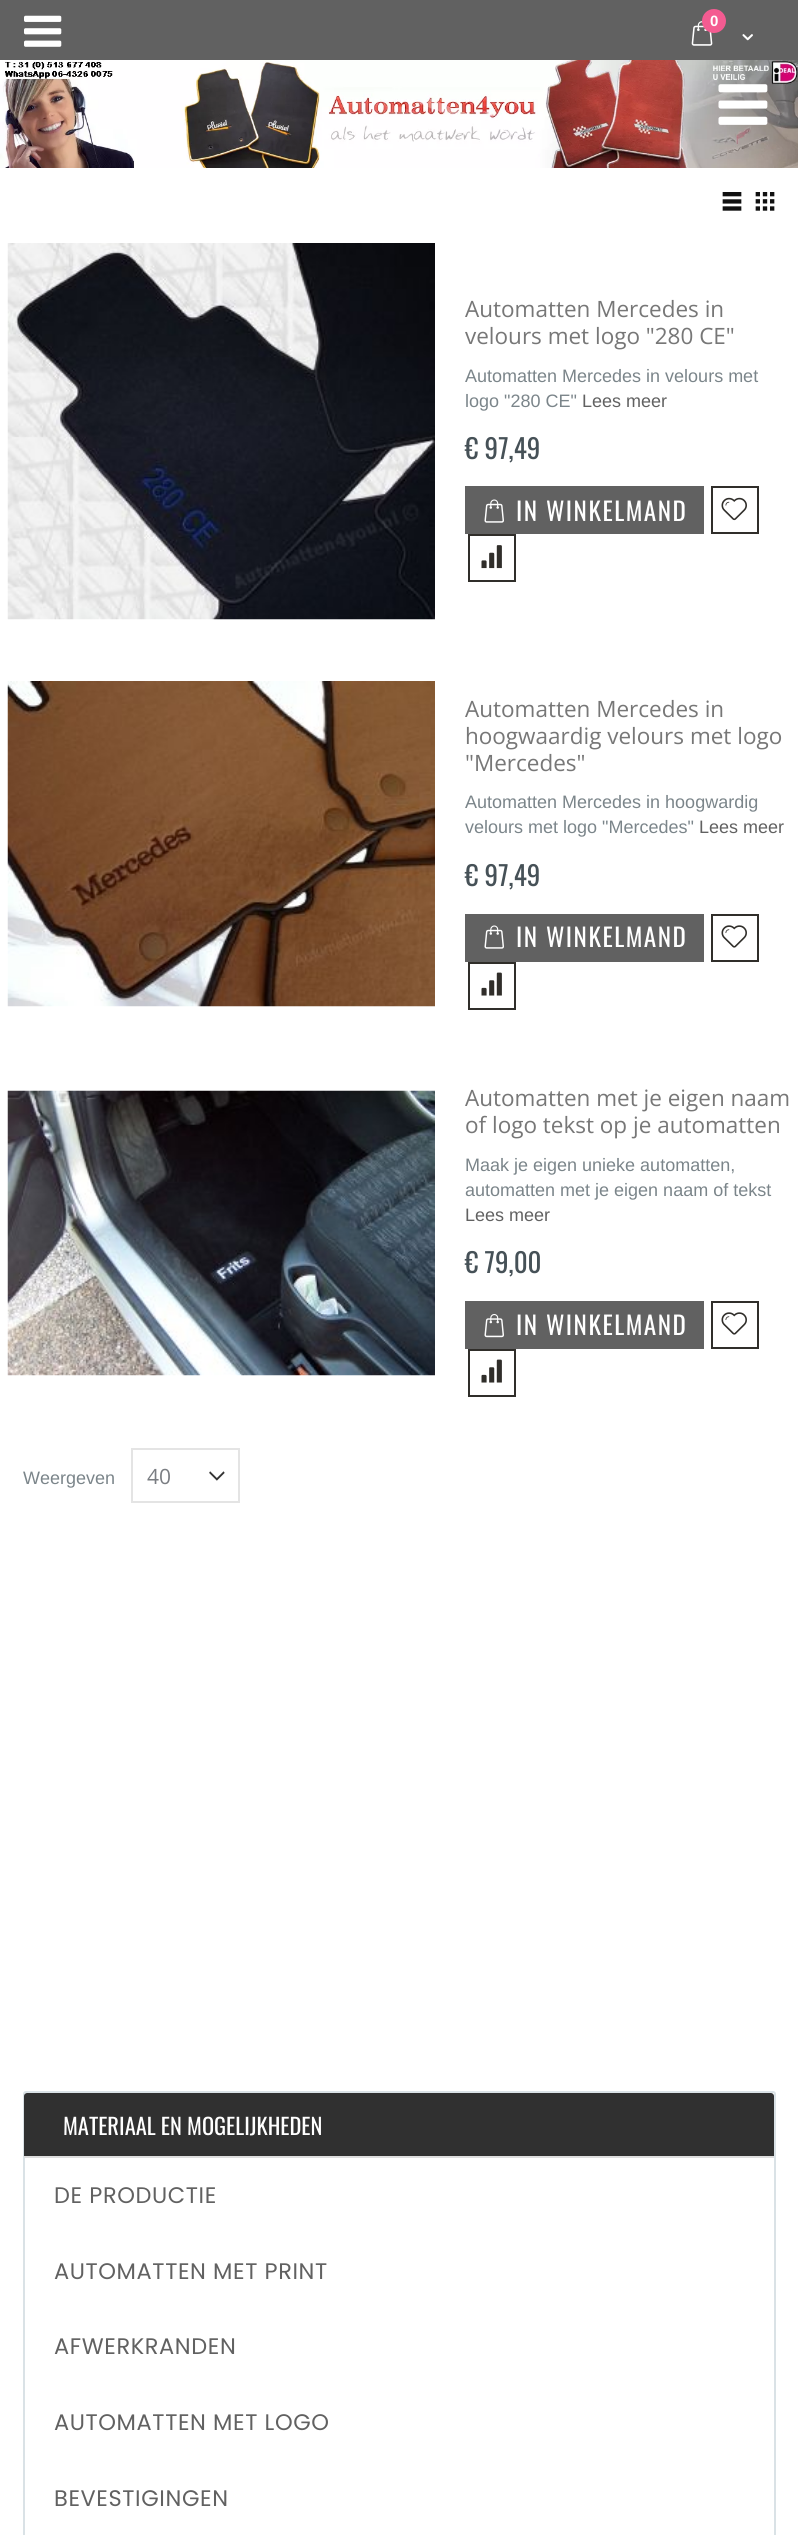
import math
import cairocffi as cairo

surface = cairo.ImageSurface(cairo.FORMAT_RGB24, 798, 2535)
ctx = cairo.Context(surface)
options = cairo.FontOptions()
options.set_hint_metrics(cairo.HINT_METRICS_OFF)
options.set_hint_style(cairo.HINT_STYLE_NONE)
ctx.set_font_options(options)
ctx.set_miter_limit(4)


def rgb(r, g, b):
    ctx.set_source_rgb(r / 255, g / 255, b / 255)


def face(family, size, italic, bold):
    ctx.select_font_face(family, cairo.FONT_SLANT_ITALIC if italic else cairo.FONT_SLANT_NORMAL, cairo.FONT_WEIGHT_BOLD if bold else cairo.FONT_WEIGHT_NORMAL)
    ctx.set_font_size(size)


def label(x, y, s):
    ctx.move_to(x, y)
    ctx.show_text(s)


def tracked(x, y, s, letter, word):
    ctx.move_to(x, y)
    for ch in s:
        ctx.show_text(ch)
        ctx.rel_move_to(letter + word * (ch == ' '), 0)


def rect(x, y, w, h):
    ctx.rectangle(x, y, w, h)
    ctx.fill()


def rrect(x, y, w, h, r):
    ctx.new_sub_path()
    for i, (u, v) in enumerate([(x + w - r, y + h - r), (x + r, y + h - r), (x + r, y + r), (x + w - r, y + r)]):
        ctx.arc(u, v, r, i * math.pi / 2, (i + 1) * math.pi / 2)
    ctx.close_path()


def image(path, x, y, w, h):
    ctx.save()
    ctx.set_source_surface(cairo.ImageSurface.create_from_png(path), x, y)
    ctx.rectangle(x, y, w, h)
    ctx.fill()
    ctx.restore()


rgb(255, 255, 255)
ctx.paint()
rgb(97, 97, 97)
rect(0, 0, 798, 60)
image('image0.png', 0, 60, 798, 108)
image('image1.png', 718, 84, 50, 41)
image('image2.png', 24, 15, 38, 32)
image('image3.png', 691, 21, 22, 25)
rgb(244, 91, 145)
ctx.arc(714, 21, 12, 0, 2 * math.pi)
ctx.fill()
face('Liberation Sans', 15, 0, 1)
rgb(255, 255, 255)
label(710, 26, '0')
image('image4.png', 742, 34, 11, 7)
image('image5.png', 722, 192, 20, 19)
image('image6.png', 755, 192, 20, 19)
image('image7.png', 7, 243, 428, 377)
face('Open Sans', 22.5, 0, 0)
rgb(119, 119, 119)
label(465, 317, 'Automatten Mercedes in')
label(465, 344, 'velours met logo "280 CE"')
face('Liberation Sans', 18, 0, 0)
rgb(123, 133, 138)
label(465, 382, 'Automatten Mercedes in velours met')
label(465, 407, 'logo "280 CE"')
rgb(97, 97, 97)
label(582, 407, 'Lees meer')
face('Oswald', 27, 0, 0)
rgb(70, 81, 87)
label(465, 459, '€ 97,49')
rgb(97, 97, 97)
rect(465, 486, 239, 48)
image('image8.png', 484, 499, 20, 24)
face('Oswald', 25.25, 0, 0)
rgb(255, 255, 255)
tracked(516, 521, 'IN WINKELMAND', 1.5, 0)
ctx.rectangle(712, 487, 46, 46)
rgb(48, 46, 42)
ctx.stroke()
image('image9.png', 721, 497, 26, 24)
ctx.rectangle(469, 535, 46, 46)
ctx.stroke()
image('image10.png', 481, 545, 21, 24)
image('image11.png', 7, 681, 428, 326)
face('Open Sans', 22.5, 0, 0)
rgb(119, 119, 119)
label(465, 717, 'Automatten Mercedes in')
label(465, 744, 'hoogwaardig velours met logo')
label(465, 771, '"Mercedes"')
face('Liberation Sans', 18, 0, 0)
rgb(123, 133, 138)
label(465, 808, 'Automatten Mercedes in hoogwardig')
label(465, 833, 'velours met logo "Mercedes"')
rgb(97, 97, 97)
label(699, 833, 'Lees meer')
face('Oswald', 27, 0, 0)
rgb(70, 81, 87)
label(465, 886, '€ 97,49')
rgb(97, 97, 97)
rect(465, 914, 239, 48)
image('image8.png', 484, 925, 20, 24)
face('Oswald', 25.25, 0, 0)
rgb(255, 255, 255)
tracked(516, 947, 'IN WINKELMAND', 1.5, 0)
ctx.rectangle(712, 915, 46, 46)
rgb(48, 46, 42)
ctx.stroke()
image('image12.png', 721, 925, 26, 23)
ctx.rectangle(469, 963, 46, 46)
ctx.stroke()
image('image13.png', 481, 972, 21, 24)
image('image14.png', 7, 1090, 428, 286)
face('Open Sans', 22.5, 0, 0)
rgb(119, 119, 119)
label(465, 1106, 'Automatten met je eigen naam')
label(465, 1133, 'of logo tekst op je automatten')
face('Liberation Sans', 18, 0, 0)
rgb(123, 133, 138)
label(465, 1171, 'Maak je eigen unieke automatten,')
label(465, 1196, 'automatten met je eigen naam of tekst')
rgb(97, 97, 97)
label(465, 1221, 'Lees meer')
face('Oswald', 27, 0, 0)
rgb(70, 81, 87)
label(465, 1273, '€ 79,00')
rgb(97, 97, 97)
rect(465, 1301, 239, 48)
image('image15.png', 484, 1314, 20, 24)
face('Oswald', 25.25, 0, 0)
rgb(255, 255, 255)
tracked(516, 1335, 'IN WINKELMAND', 1.5, 0)
ctx.rectangle(712, 1302, 46, 46)
rgb(48, 46, 42)
ctx.stroke()
image('image12.png', 721, 1312, 26, 23)
ctx.rectangle(469, 1350, 46, 46)
ctx.stroke()
image('image13.png', 481, 1359, 21, 24)
face('Liberation Sans', 18, 0, 0)
rgb(123, 133, 138)
label(23, 1484, 'Weergeven')
image('image16.png', 209, 1471, 16, 10)
ctx.rectangle(132, 1449, 107, 53)
rgb(228, 228, 228)
ctx.stroke()
face('Open Sans', 21, 0, 0)
rgb(122, 125, 130)
label(147, 1484, '40')
rrect(24, 2092, 751, 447, 2)
rgb(218, 226, 230)
ctx.stroke()
rgb(48, 48, 48)
ctx.new_path()
ctx.move_to(27, 2093)
ctx.line_to(771, 2093)
ctx.curve_to(772.5, 2093, 774, 2094.5, 774, 2096)
ctx.line_to(774, 2157)
ctx.line_to(24, 2157)
ctx.line_to(24, 2096)
ctx.curve_to(24, 2094.5, 25.5, 2093, 27, 2093)
ctx.close_path()
ctx.fill()
rgb(221, 221, 221)
rect(24, 2156, 750, 2)
face('Oswald', 22.5, 0, 0)
rgb(255, 255, 255)
label(63, 2135, 'MATERIAAL EN MOGELIJKHEDEN')
face('Poppins', 22.5, 0, 0)
rgb(97, 97, 97)
tracked(54, 2203, 'DE PRODUCTIE', 0.6, 0)
tracked(54, 2279, 'AUTOMATTEN MET PRINT', 0.6, 0)
tracked(54, 2354, 'AFWERKRANDEN', 0.6, 0)
tracked(54, 2430, 'AUTOMATTEN MET LOGO', 0.6, 0)
tracked(54, 2506, 'BEVESTIGINGEN', 0.6, 0)
surface.write_to_png('render.png')
